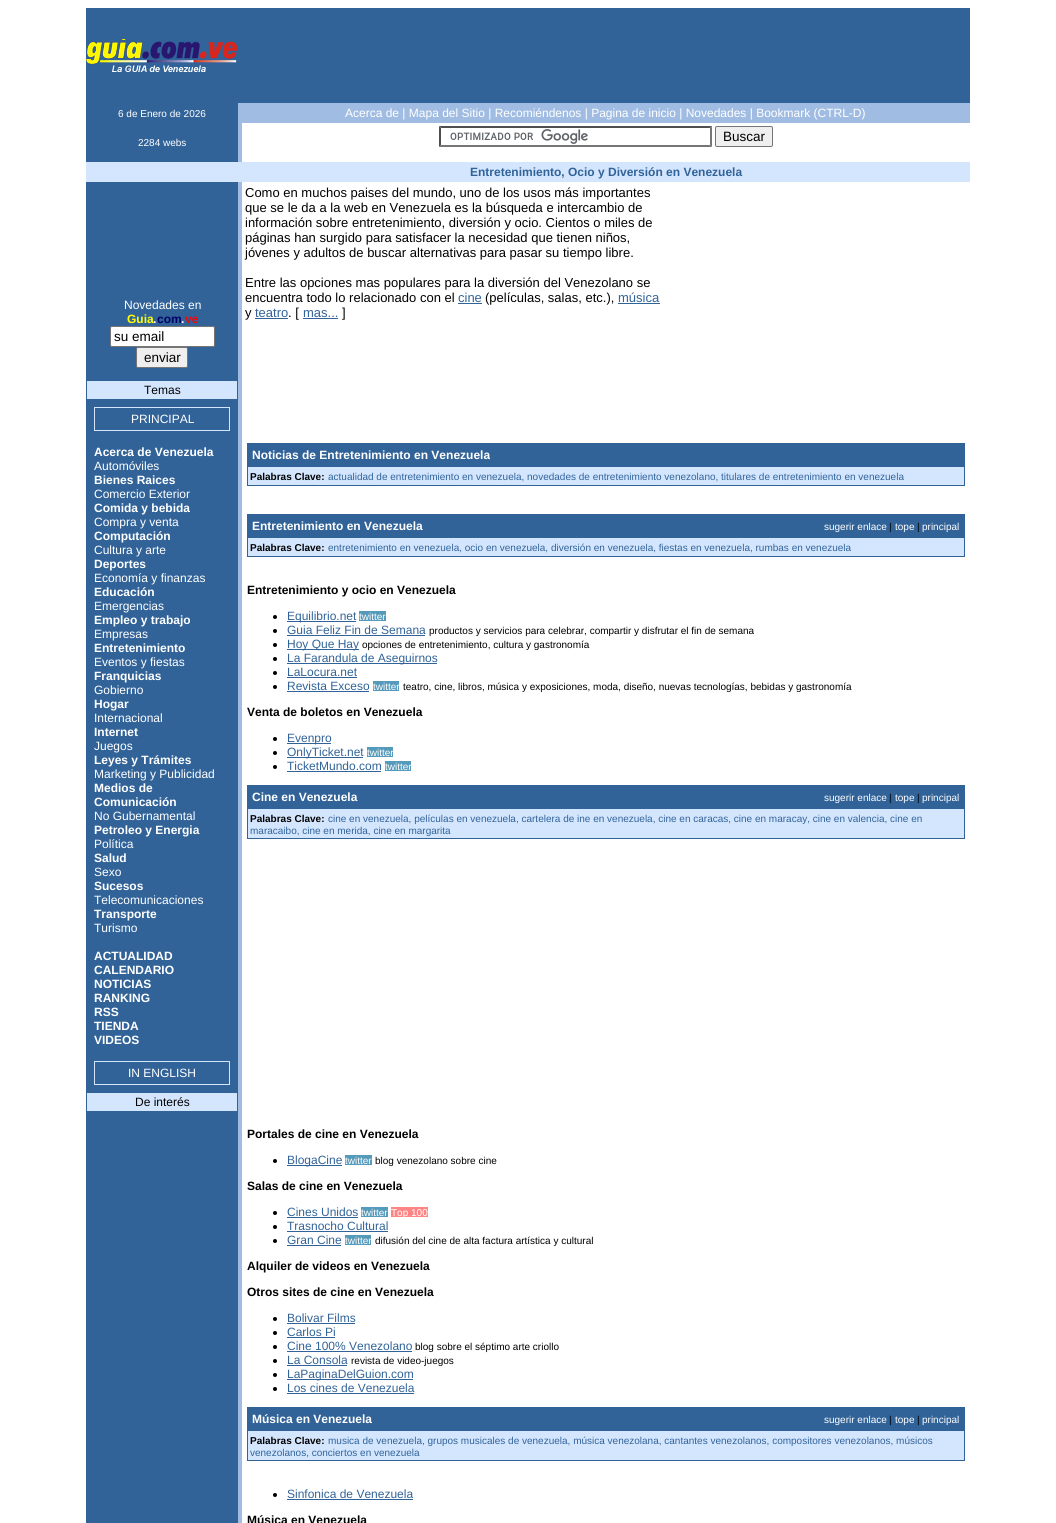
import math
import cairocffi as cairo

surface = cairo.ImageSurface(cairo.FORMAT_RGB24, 1056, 1523)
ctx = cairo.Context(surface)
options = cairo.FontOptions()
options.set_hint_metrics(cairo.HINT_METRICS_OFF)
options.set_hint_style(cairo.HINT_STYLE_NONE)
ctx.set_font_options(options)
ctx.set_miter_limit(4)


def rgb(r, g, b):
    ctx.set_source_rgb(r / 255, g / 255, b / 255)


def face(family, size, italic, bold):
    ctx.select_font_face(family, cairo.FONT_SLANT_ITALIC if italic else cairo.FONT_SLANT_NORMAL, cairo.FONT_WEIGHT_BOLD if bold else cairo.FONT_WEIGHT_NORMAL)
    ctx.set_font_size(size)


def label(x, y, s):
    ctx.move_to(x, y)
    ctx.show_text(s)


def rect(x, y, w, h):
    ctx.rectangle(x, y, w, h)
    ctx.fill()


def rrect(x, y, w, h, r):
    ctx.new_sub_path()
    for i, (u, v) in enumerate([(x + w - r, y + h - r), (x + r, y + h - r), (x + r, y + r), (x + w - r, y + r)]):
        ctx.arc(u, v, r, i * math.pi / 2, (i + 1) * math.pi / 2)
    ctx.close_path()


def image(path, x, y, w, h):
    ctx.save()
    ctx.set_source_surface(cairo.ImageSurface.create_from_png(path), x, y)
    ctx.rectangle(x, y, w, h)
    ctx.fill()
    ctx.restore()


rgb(255, 255, 255)
ctx.paint()
rgb(49, 99, 153)
rect(86, 8, 884, 95)
image('image0.png', 86, 38, 151, 34)
rgb(160, 188, 226)
rect(238, 103, 732, 20)
rgb(49, 99, 153)
rect(86, 103, 152, 59)
face('Liberation Sans', 10, 0, 0)
rgb(255, 255, 255)
label(118, 117, '6 de Enero de 2026')
face('Liberation Sans', 12, 0, 0)
label(345, 117, 'Acerca de | Mapa del Sitio | Recomiéndenos | Pagina de inicio | Novedades | Bookmark (CTRL-D)')
face('Liberation Sans', 10, 0, 0)
label(138, 146, '2284 webs')
rgb(160, 188, 226)
rect(238, 123, 4, 39)
image('image1.png', 450, 129, 138, 15)
rgb(79, 79, 79)
ctx.new_path()
ctx.move_to(439, 126)
ctx.line_to(712, 126)
ctx.line_to(710, 128)
ctx.line_to(441, 128)
ctx.close_path()
ctx.fill()
rgb(118, 118, 118)
ctx.new_path()
ctx.move_to(712, 126)
ctx.line_to(712, 147)
ctx.line_to(710, 145)
ctx.line_to(710, 128)
ctx.close_path()
ctx.fill()
ctx.new_path()
ctx.move_to(712, 147)
ctx.line_to(439, 147)
ctx.line_to(441, 145)
ctx.line_to(710, 145)
ctx.close_path()
ctx.fill()
rgb(79, 79, 79)
ctx.new_path()
ctx.move_to(439, 147)
ctx.line_to(439, 126)
ctx.line_to(441, 128)
ctx.line_to(441, 145)
ctx.close_path()
ctx.fill()
rgb(239, 239, 239)
rrect(715.5, 126.5, 57, 20, 1.5)
ctx.fill_preserve()
rgb(118, 118, 118)
ctx.set_line_width(1)
ctx.stroke()
face('Liberation Sans', 13.5, 0, 0)
rgb(0, 0, 0)
label(723, 141, 'Buscar')
rgb(212, 230, 254)
rect(86, 162, 884, 20)
face('Liberation Sans', 12, 0, 1)
rgb(49, 99, 153)
label(470, 176, 'Entretenimiento, Ocio y Diversión en Venezuela')
rect(86, 182, 152, 1341)
face('Liberation Sans', 12, 0, 0)
rgb(255, 255, 255)
label(124, 309, 'Novedades en')
face('Liberation Sans', 12, 0, 1)
rgb(255, 255, 0)
label(127, 323, 'Guia')
rgb(255, 255, 255)
label(153, 323, '.')
rgb(0, 0, 102)
label(157, 323, 'com')
rgb(255, 255, 255)
label(181, 323, '.')
rgb(255, 0, 0)
label(185, 323, 've')
rgb(255, 255, 255)
rrect(110.5, 326.5, 104, 20, 1.5)
ctx.fill_preserve()
rgb(118, 118, 118)
ctx.stroke()
face('Liberation Sans', 13.5, 0, 0)
rgb(0, 0, 0)
label(114, 341, 'su email')
rgb(239, 239, 239)
rrect(136.5, 347.5, 51, 20, 1.5)
ctx.fill_preserve()
rgb(118, 118, 118)
ctx.stroke()
rgb(0, 0, 0)
label(144, 362, 'enviar')
rgb(212, 230, 254)
rect(87, 381, 150, 18)
face('Liberation Sans', 12, 0, 0)
rgb(0, 0, 0)
label(144, 394, 'Temas')
rgb(212, 230, 254)
rect(94, 407, 136, 24)
rgb(49, 99, 153)
rect(95, 408, 134, 22)
rgb(255, 255, 255)
label(131, 423, 'PRINCIPAL')
face('Liberation Sans', 12, 0, 1)
label(94, 456, 'Acerca de Venezuela')
face('Liberation Sans', 12, 0, 0)
label(94, 470, 'Automóviles')
face('Liberation Sans', 12, 0, 1)
label(94, 484, 'Bienes Raices')
face('Liberation Sans', 12, 0, 0)
label(94, 498, 'Comercio Exterior')
face('Liberation Sans', 12, 0, 1)
label(94, 512, 'Comida y bebida')
face('Liberation Sans', 12, 0, 0)
label(94, 526, 'Compra y venta')
face('Liberation Sans', 12, 0, 1)
label(94, 540, 'Computación')
face('Liberation Sans', 12, 0, 0)
label(94, 554, 'Cultura y arte')
face('Liberation Sans', 12, 0, 1)
label(94, 568, 'Deportes')
face('Liberation Sans', 12, 0, 0)
label(94, 582, 'Economía y finanzas')
face('Liberation Sans', 12, 0, 1)
label(94, 596, 'Educación')
face('Liberation Sans', 12, 0, 0)
label(94, 610, 'Emergencias')
face('Liberation Sans', 12, 0, 1)
label(94, 624, 'Empleo y trabajo')
face('Liberation Sans', 12, 0, 0)
label(94, 638, 'Empresas')
face('Liberation Sans', 12, 0, 1)
label(94, 652, 'Entretenimiento')
face('Liberation Sans', 12, 0, 0)
label(94, 666, 'Eventos y fiestas')
face('Liberation Sans', 12, 0, 1)
label(94, 680, 'Franquicias')
face('Liberation Sans', 12, 0, 0)
label(94, 694, 'Gobierno')
face('Liberation Sans', 12, 0, 1)
label(94, 708, 'Hogar')
face('Liberation Sans', 12, 0, 0)
label(94, 722, 'Internacional')
face('Liberation Sans', 12, 0, 1)
label(94, 736, 'Internet')
face('Liberation Sans', 12, 0, 0)
label(94, 750, 'Juegos')
face('Liberation Sans', 12, 0, 1)
label(94, 764, 'Leyes y Trámites')
face('Liberation Sans', 12, 0, 0)
label(94, 778, 'Marketing y Publicidad')
face('Liberation Sans', 12, 0, 1)
label(94, 792, 'Medios de')
label(94, 806, 'Comunicación')
face('Liberation Sans', 12, 0, 0)
label(94, 820, 'No Gubernamental')
face('Liberation Sans', 12, 0, 1)
label(94, 834, 'Petroleo y Energia')
face('Liberation Sans', 12, 0, 0)
label(94, 848, 'Política')
face('Liberation Sans', 12, 0, 1)
label(94, 862, 'Salud')
face('Liberation Sans', 12, 0, 0)
label(94, 876, 'Sexo')
face('Liberation Sans', 12, 0, 1)
label(94, 890, 'Sucesos')
face('Liberation Sans', 12, 0, 0)
label(94, 904, 'Telecomunicaciones')
face('Liberation Sans', 12, 0, 1)
label(94, 918, 'Transporte')
face('Liberation Sans', 12, 0, 0)
label(94, 932, 'Turismo')
face('Liberation Sans', 12, 0, 1)
label(94, 960, 'ACTUALIDAD')
label(94, 974, 'CALENDARIO')
label(94, 988, 'NOTICIAS')
label(94, 1002, 'RANKING')
label(94, 1016, 'RSS')
label(94, 1030, 'TIENDA')
label(94, 1044, 'VIDEOS')
rgb(212, 230, 254)
rect(94, 1061, 136, 24)
rgb(49, 99, 153)
rect(95, 1062, 134, 22)
face('Liberation Sans', 12, 0, 0)
rgb(255, 255, 255)
label(128, 1077, 'IN ENGLISH')
rgb(212, 230, 254)
rect(87, 1093, 150, 18)
rgb(0, 0, 0)
label(135, 1106, 'De interés')
rgb(160, 188, 226)
rect(238, 182, 4, 1341)
face('Liberation Sans', 13, 0, 0)
rgb(0, 0, 0)
label(245, 197, 'Como en muchos paises del mundo, uno de los usos más importantes')
label(245, 212, 'que se le da a la web en Venezuela es la búsqueda e intercambio de')
label(245, 227, 'información sobre entretenimiento, diversión y ocio. Cientos o miles de')
label(245, 242, 'páginas han surgido para satisfacer la necesidad que tienen niños,')
label(245, 257, 'jóvenes y adultos de buscar alternativas para pasar su tiempo libre.')
label(245, 287, 'Entre las opciones mas populares para la diversión del Venezolano se')
label(245, 302, 'encuentra todo lo relacionado con el')
rgb(49, 99, 153)
label(458, 302, 'cine')
rect(458, 303, 24, 1)
rgb(0, 0, 0)
label(485, 302, '(películas, salas, etc.),')
rgb(49, 99, 153)
label(618, 302, 'música')
rect(618, 303, 42, 1)
rgb(0, 0, 0)
label(245, 317, 'y')
rgb(49, 99, 153)
rect(255, 318, 33, 1)
label(255, 317, 'teatro')
rgb(0, 0, 0)
label(288, 317, '. [')
rgb(49, 99, 153)
label(303, 317, 'mas...')
rect(303, 318, 35, 1)
rgb(0, 0, 0)
label(342, 317, ']')
rgb(49, 99, 153)
rect(247, 443, 718, 43)
face('Liberation Sans', 12, 0, 1)
rgb(255, 255, 255)
label(252, 459, 'Noticias de Entretenimiento en Venezuela')
rgb(212, 230, 254)
rect(248, 467, 716, 18)
face('Liberation Sans', 10, 0, 1)
rgb(0, 0, 0)
label(250, 480, 'Palabras Clave:')
face('Liberation Sans', 10, 0, 0)
rgb(49, 99, 153)
label(328, 480, 'actualidad de entretenimiento en venezuela, novedades de entretenimiento venezolano, titulares de entretenimiento en venezuela')
rect(247, 514, 718, 43)
face('Liberation Sans', 12, 0, 1)
rgb(255, 255, 255)
label(252, 530, 'Entretenimiento en Venezuela')
face('Liberation Sans', 10, 0, 0)
label(824, 530, 'sugerir enlace')
rgb(0, 0, 0)
label(889, 530, '|')
rgb(255, 255, 255)
label(895, 530, 'tope')
rgb(0, 0, 0)
label(917, 530, '|')
rgb(255, 255, 255)
label(922, 530, 'principal')
rgb(212, 230, 254)
rect(248, 538, 716, 18)
face('Liberation Sans', 10, 0, 1)
rgb(0, 0, 0)
label(250, 551, 'Palabras Clave:')
face('Liberation Sans', 10, 0, 0)
rgb(49, 99, 153)
label(328, 551, 'entretenimiento en venezuela, ocio en venezuela, diversión en venezuela, fiestas en venezuela, rumbas en venezuela')
face('Liberation Sans', 12, 0, 1)
rgb(0, 0, 0)
label(247, 594, 'Entretenimiento y ocio en Venezuela')
ctx.new_path()
ctx.arc(275, 617, 2, 0, 2 * math.pi)
ctx.fill()
rgb(49, 99, 153)
rect(287, 621, 69, 1)
face('Liberation Sans', 12, 0, 0)
label(287, 620, 'Equilibrio.net')
rgb(85, 153, 187)
rect(359, 611, 27, 10)
face('Liberation Sans', 10, 0, 0)
rgb(255, 255, 255)
label(359, 620, 'twitter')
rgb(0, 0, 0)
ctx.new_path()
ctx.arc(275, 631, 2, 0, 2 * math.pi)
ctx.fill()
face('Liberation Sans', 12, 0, 0)
rgb(49, 99, 153)
label(287, 634, 'Guia Feliz Fin de Semana')
rect(287, 635, 138, 1)
face('Liberation Sans', 10, 0, 0)
rgb(0, 0, 0)
label(429, 634, 'productos y servicios para celebrar, compartir y disfrutar el fin de semana')
ctx.new_path()
ctx.arc(275, 645, 2, 0, 2 * math.pi)
ctx.fill()
rgb(49, 99, 153)
rect(287, 649, 72, 1)
face('Liberation Sans', 12, 0, 0)
label(287, 648, 'Hoy Que Hay')
face('Liberation Sans', 10, 0, 0)
rgb(0, 0, 0)
label(362, 648, 'opciones de entretenimiento, cultura y gastronomía')
ctx.new_path()
ctx.arc(275, 659, 2, 0, 2 * math.pi)
ctx.fill()
rgb(49, 99, 153)
rect(287, 663, 150, 1)
face('Liberation Sans', 12, 0, 0)
label(287, 662, 'La Farandula de Aseguirnos')
rgb(0, 0, 0)
ctx.new_path()
ctx.arc(275, 673, 2, 0, 2 * math.pi)
ctx.fill()
rgb(49, 99, 153)
label(287, 676, 'LaLocura.net')
rect(287, 677, 70, 1)
rgb(0, 0, 0)
ctx.new_path()
ctx.arc(275, 687, 2, 0, 2 * math.pi)
ctx.fill()
rgb(49, 99, 153)
label(287, 690, 'Revista Exceso')
rect(287, 691, 82, 1)
rgb(85, 153, 187)
rect(373, 681, 26, 10)
face('Liberation Sans', 10, 0, 0)
rgb(255, 255, 255)
label(373, 690, 'twitter')
rgb(0, 0, 0)
label(403, 690, 'teatro, cine, libros, música y exposiciones, moda, diseño, nuevas tecnologías, bebidas y gastronomía')
face('Liberation Sans', 12, 0, 1)
label(247, 716, 'Venta de boletos en Venezuela')
ctx.new_path()
ctx.arc(275, 739, 2, 0, 2 * math.pi)
ctx.fill()
rgb(49, 99, 153)
rect(287, 743, 44, 1)
face('Liberation Sans', 12, 0, 0)
label(287, 742, 'Evenpro')
rgb(0, 0, 0)
ctx.new_path()
ctx.arc(275, 753, 2, 0, 2 * math.pi)
ctx.fill()
rgb(49, 99, 153)
rect(287, 757, 76, 1)
label(287, 756, 'OnlyTicket.net')
rgb(85, 153, 187)
rect(367, 747, 26, 10)
face('Liberation Sans', 10, 0, 0)
rgb(255, 255, 255)
label(367, 756, 'twitter')
rgb(0, 0, 0)
ctx.new_path()
ctx.arc(275, 767, 2, 0, 2 * math.pi)
ctx.fill()
face('Liberation Sans', 12, 0, 0)
rgb(49, 99, 153)
label(287, 770, 'TicketMundo.com')
rect(287, 771, 94, 1)
rgb(85, 153, 187)
rect(385, 761, 26, 10)
face('Liberation Sans', 10, 0, 0)
rgb(255, 255, 255)
label(385, 770, 'twitter')
rgb(49, 99, 153)
rect(247, 785, 718, 54)
face('Liberation Sans', 12, 0, 1)
rgb(255, 255, 255)
label(252, 801, 'Cine en Venezuela')
face('Liberation Sans', 10, 0, 0)
label(824, 801, 'sugerir enlace')
rgb(0, 0, 0)
label(889, 801, '|')
rgb(255, 255, 255)
label(895, 801, 'tope')
rgb(0, 0, 0)
label(917, 801, '|')
rgb(255, 255, 255)
label(922, 801, 'principal')
rgb(212, 230, 254)
rect(248, 809, 716, 29)
face('Liberation Sans', 10, 0, 1)
rgb(0, 0, 0)
label(250, 822, 'Palabras Clave:')
face('Liberation Sans', 10, 0, 0)
rgb(49, 99, 153)
label(328, 822, 'cine en venezuela, películas en venezuela, cartelera de ine en venezuela, cine en caracas, cine en maracay, cine en valencia, cine en')
label(250, 834, 'maracaibo, cine en merida, cine en margarita')
face('Liberation Sans', 12, 0, 1)
rgb(0, 0, 0)
label(247, 1138, 'Portales de cine en Venezuela')
ctx.new_path()
ctx.arc(275, 1161, 2, 0, 2 * math.pi)
ctx.fill()
rgb(49, 99, 153)
rect(287, 1165, 55, 1)
face('Liberation Sans', 12, 0, 0)
label(287, 1164, 'BlogaCine')
rgb(85, 153, 187)
rect(345, 1155, 27, 10)
face('Liberation Sans', 10, 0, 0)
rgb(255, 255, 255)
label(345, 1164, 'twitter')
rgb(0, 0, 0)
label(375, 1164, 'blog venezolano sobre cine')
face('Liberation Sans', 12, 0, 1)
label(247, 1190, 'Salas de cine en Venezuela')
ctx.new_path()
ctx.arc(275, 1213, 2, 0, 2 * math.pi)
ctx.fill()
face('Liberation Sans', 12, 0, 0)
rgb(49, 99, 153)
label(287, 1216, 'Cines Unidos')
rect(287, 1217, 71, 1)
rgb(85, 153, 187)
rect(361, 1207, 27, 10)
face('Liberation Sans', 10, 0, 0)
rgb(255, 255, 255)
label(361, 1216, 'twitter')
rgb(255, 132, 132)
rect(391, 1207, 37, 10)
rgb(255, 255, 255)
label(391, 1216, 'Top 100')
rgb(0, 0, 0)
ctx.new_path()
ctx.arc(275, 1227, 2, 0, 2 * math.pi)
ctx.fill()
face('Liberation Sans', 12, 0, 0)
rgb(49, 99, 153)
label(287, 1230, 'Trasnocho Cultural')
rect(287, 1231, 101, 1)
rgb(0, 0, 0)
ctx.new_path()
ctx.arc(275, 1241, 2, 0, 2 * math.pi)
ctx.fill()
rgb(49, 99, 153)
label(287, 1244, 'Gran Cine')
rect(287, 1245, 54, 1)
rgb(85, 153, 187)
rect(345, 1235, 26, 10)
face('Liberation Sans', 10, 0, 0)
rgb(255, 255, 255)
label(345, 1244, 'twitter')
rgb(0, 0, 0)
label(375, 1244, 'difusión del cine de alta factura artística y cultural')
face('Liberation Sans', 12, 0, 1)
label(247, 1270, 'Alquiler de videos en Venezuela')
label(247, 1296, 'Otros sites de cine en Venezuela')
ctx.new_path()
ctx.arc(275, 1319, 2, 0, 2 * math.pi)
ctx.fill()
face('Liberation Sans', 12, 0, 0)
rgb(49, 99, 153)
label(287, 1322, 'Bolivar Films')
rect(287, 1323, 68, 1)
rgb(0, 0, 0)
ctx.new_path()
ctx.arc(275, 1333, 2, 0, 2 * math.pi)
ctx.fill()
rgb(49, 99, 153)
label(287, 1336, 'Carlos Pi')
rect(287, 1337, 48, 1)
rgb(0, 0, 0)
ctx.new_path()
ctx.arc(275, 1347, 2, 0, 2 * math.pi)
ctx.fill()
rgb(49, 99, 153)
label(287, 1350, 'Cine 100% Venezolano')
rect(287, 1351, 125, 1)
face('Liberation Sans', 10, 0, 0)
rgb(0, 0, 0)
label(415, 1350, 'blog sobre el séptimo arte criollo')
ctx.new_path()
ctx.arc(275, 1361, 2, 0, 2 * math.pi)
ctx.fill()
face('Liberation Sans', 12, 0, 0)
rgb(49, 99, 153)
label(287, 1364, 'La Consola')
rect(287, 1365, 60, 1)
face('Liberation Sans', 10, 0, 0)
rgb(0, 0, 0)
label(351, 1364, 'revista de video-juegos')
ctx.new_path()
ctx.arc(275, 1375, 2, 0, 2 * math.pi)
ctx.fill()
rgb(49, 99, 153)
rect(287, 1379, 126, 1)
face('Liberation Sans', 12, 0, 0)
label(287, 1378, 'LaPaginaDelGuion.com')
rgb(0, 0, 0)
ctx.new_path()
ctx.arc(275, 1389, 2, 0, 2 * math.pi)
ctx.fill()
rgb(49, 99, 153)
label(287, 1392, 'Los cines de Venezuela')
rect(287, 1393, 127, 1)
rect(247, 1407, 718, 54)
face('Liberation Sans', 12, 0, 1)
rgb(255, 255, 255)
label(252, 1423, 'Música en Venezuela')
face('Liberation Sans', 10, 0, 0)
label(824, 1423, 'sugerir enlace')
rgb(0, 0, 0)
label(889, 1423, '|')
rgb(255, 255, 255)
label(895, 1423, 'tope')
rgb(0, 0, 0)
label(917, 1423, '|')
rgb(255, 255, 255)
label(922, 1423, 'principal')
rgb(212, 230, 254)
rect(248, 1431, 716, 29)
face('Liberation Sans', 10, 0, 1)
rgb(0, 0, 0)
label(250, 1444, 'Palabras Clave:')
face('Liberation Sans', 10, 0, 0)
rgb(49, 99, 153)
label(328, 1444, 'musica de venezuela, grupos musicales de venezuela, música venezolana, cantantes venezolanos, compositores venezolanos, músicos')
label(250, 1456, 'venezolanos, conciertos en venezuela')
rgb(0, 0, 0)
ctx.new_path()
ctx.arc(275, 1495, 2, 0, 2 * math.pi)
ctx.fill()
face('Liberation Sans', 12, 0, 0)
rgb(49, 99, 153)
label(287, 1498, 'Sinfonica de Venezuela')
rect(287, 1499, 126, 1)
face('Liberation Sans', 12, 0, 1)
rgb(0, 0, 0)
label(247, 1524, 'Música en Venezuela')
surface.write_to_png('render.png')
